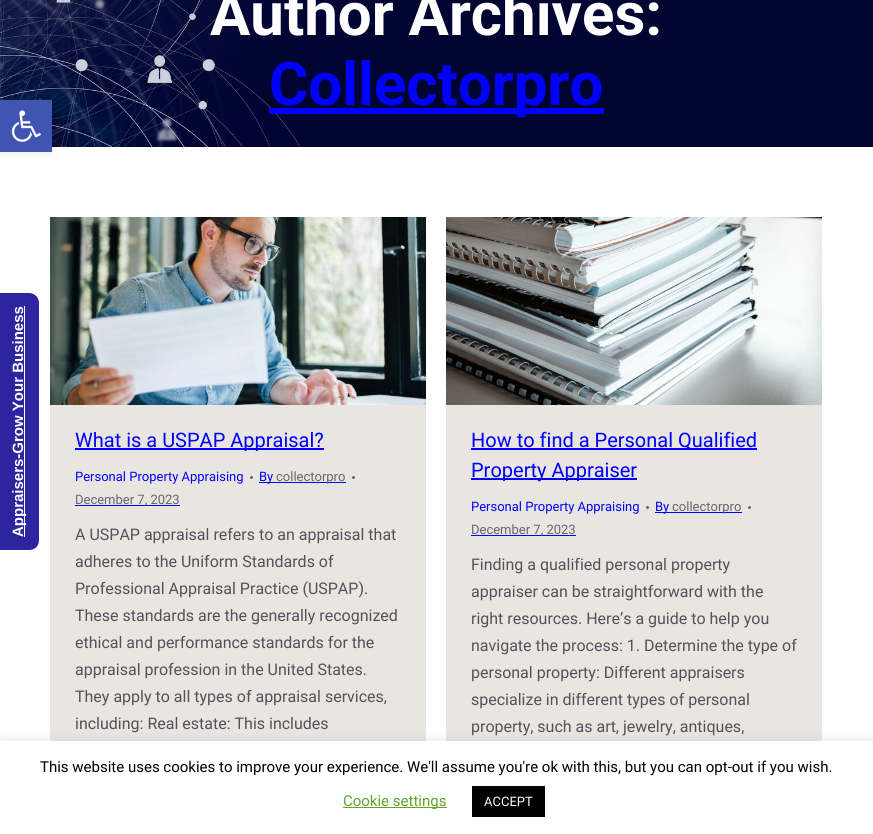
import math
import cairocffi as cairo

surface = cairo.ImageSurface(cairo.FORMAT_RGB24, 873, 834)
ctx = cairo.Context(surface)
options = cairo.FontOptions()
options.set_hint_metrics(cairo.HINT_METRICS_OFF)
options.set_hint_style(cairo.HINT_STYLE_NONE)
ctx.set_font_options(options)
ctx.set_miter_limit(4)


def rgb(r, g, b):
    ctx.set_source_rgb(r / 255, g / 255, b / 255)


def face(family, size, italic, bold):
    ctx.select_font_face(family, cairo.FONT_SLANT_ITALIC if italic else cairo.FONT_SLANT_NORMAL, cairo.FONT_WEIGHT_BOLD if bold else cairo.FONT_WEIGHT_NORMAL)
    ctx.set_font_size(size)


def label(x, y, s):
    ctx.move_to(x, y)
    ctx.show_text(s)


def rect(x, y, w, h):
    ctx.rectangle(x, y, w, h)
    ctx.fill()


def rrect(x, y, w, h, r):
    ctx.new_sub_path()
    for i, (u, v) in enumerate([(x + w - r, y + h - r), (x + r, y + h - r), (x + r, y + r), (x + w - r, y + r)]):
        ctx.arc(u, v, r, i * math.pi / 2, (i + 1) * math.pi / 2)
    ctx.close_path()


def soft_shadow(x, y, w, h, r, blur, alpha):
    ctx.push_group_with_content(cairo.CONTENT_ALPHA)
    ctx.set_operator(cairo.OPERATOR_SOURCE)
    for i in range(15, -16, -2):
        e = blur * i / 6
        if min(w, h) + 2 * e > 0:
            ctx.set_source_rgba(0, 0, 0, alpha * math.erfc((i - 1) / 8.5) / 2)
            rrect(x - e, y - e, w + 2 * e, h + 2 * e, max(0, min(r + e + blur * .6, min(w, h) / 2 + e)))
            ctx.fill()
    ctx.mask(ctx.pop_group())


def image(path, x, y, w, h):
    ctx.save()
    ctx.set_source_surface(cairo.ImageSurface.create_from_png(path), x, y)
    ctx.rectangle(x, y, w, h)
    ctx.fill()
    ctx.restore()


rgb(255, 255, 255)
ctx.paint()
image('image1.png', 0, 0, 873, 147)
rgb(0, 0, 0)
soft_shadow(0, 100, 52, 52, 0, 5, 0.1)
rgb(64, 84, 178)
rect(0, 100, 52, 52)
image('image0.png', 11, 110, 30, 32)
face('Roboto', 60, 0, 1)
rgb(255, 255, 255)
label(210, 35, 'Author Archives:')
rgb(0, 0, 255)
rect(269, 108, 335, 6)
label(269, 105, 'Collectorpro')
rgb(233, 230, 226)
rect(50, 405, 376, 336)
image('image2.png', 50, 217, 376, 188)
rgb(0, 0, 255)
rect(75, 448, 249, 2)
face('Roboto', 20, 0, 0)
label(75, 447, 'What is a USPAP Appraisal?')
face('Roboto', 13, 0, 0)
label(75, 481, 'Personal Property Appraising')
rgb(103, 101, 109)
ctx.new_path()
ctx.arc(251.5, 477.5, 1.5, 0, 2 * math.pi)
ctx.fill()
rgb(0, 0, 255)
rect(259, 482, 87, 1)
label(259, 481, 'By')
rgb(103, 101, 109)
label(276, 481, 'collectorpro')
ctx.new_path()
ctx.arc(353.5, 477.5, 1.5, 0, 2 * math.pi)
ctx.fill()
rgb(0, 0, 255)
rect(75, 505, 105, 1)
rgb(103, 101, 109)
label(75, 504, 'December 7, 2023')
face('Roboto', 16, 0, 0)
rgb(83, 81, 89)
label(75, 540, 'A USPAP appraisal refers to an appraisal that')
label(75, 567, 'adheres to the Uniform Standards of')
label(75, 594, 'Professional Appraisal Practice (USPAP).')
label(75, 621, 'These standards are the generally recognized')
label(75, 648, 'ethical and performance standards for the')
label(75, 675, 'appraisal profession in the United States.')
label(75, 702, 'They apply to all types of appraisal services,')
label(75, 729, 'including: Real estate: This includes')
rgb(233, 230, 226)
rect(446, 405, 376, 336)
image('image3.png', 446, 217, 376, 188)
rgb(0, 0, 255)
rect(471, 448, 286, 2)
face('Roboto', 20, 0, 0)
label(471, 447, 'How to find a Personal Qualified')
rect(471, 478, 166, 2)
label(471, 477, 'Property Appraiser')
face('Roboto', 13, 0, 0)
label(471, 511, 'Personal Property Appraising')
rgb(103, 101, 109)
ctx.new_path()
ctx.arc(647.5, 507.5, 1.5, 0, 2 * math.pi)
ctx.fill()
rgb(0, 0, 255)
rect(655, 512, 87, 1)
label(655, 511, 'By')
rgb(103, 101, 109)
label(672, 511, 'collectorpro')
ctx.new_path()
ctx.arc(749.5, 507.5, 1.5, 0, 2 * math.pi)
ctx.fill()
rgb(0, 0, 255)
rect(471, 535, 105, 1)
rgb(103, 101, 109)
label(471, 534, 'December 7, 2023')
face('Roboto', 16, 0, 0)
rgb(83, 81, 89)
label(471, 570, 'Finding a qualified personal property')
label(471, 597, 'appraiser can be straightforward with the')
label(471, 624, 'right resources. Here’s a guide to help you')
label(471, 651, 'navigate the process: 1. Determine the type of')
label(471, 678, 'personal property: Different appraisers')
label(471, 705, 'specialize in different types of personal')
label(471, 732, 'property, such as art, jewelry, antiques,')
rgb(45, 36, 160)
ctx.new_path()
ctx.move_to(-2, 550)
ctx.line_to(-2, 293)
ctx.line_to(29, 293)
ctx.curve_to(35, 293, 39, 298, 39, 303)
ctx.line_to(39, 540)
ctx.curve_to(39, 546, 35, 550, 29, 550)
ctx.close_path()
ctx.fill()
rgb(255, 255, 255)
rect(24, 306, 1, 231)
face('Liberation Sans', 15, 0, 1)
ctx.save()
ctx.translate(23, 537)
ctx.rotate(-90 * math.pi / 180)
label(0, 0, 'Appraisers-Grow Your Business')
ctx.restore()
rgb(172, 171, 171)
soft_shadow(0, 740, 873, 93, 0, 5, 0.3)
rgb(255, 255, 255)
rect(0, 741, 873, 93)
face('Roboto', 15, 0, 0)
rgb(0, 0, 0)
label(40, 772, 'This website uses cookies to improve your experience. We\'ll assume you\'re ok with this, but you can opt-out if you wish.')
rgb(98, 163, 41)
rect(343, 807, 104, 1)
label(343, 806, 'Cookie settings')
rgb(0, 0, 0)
rect(472, 786, 73, 31)
face('Roboto', 13, 0, 0)
rgb(255, 255, 255)
label(484, 806, 'ACCEPT')
surface.write_to_png('render.png')
